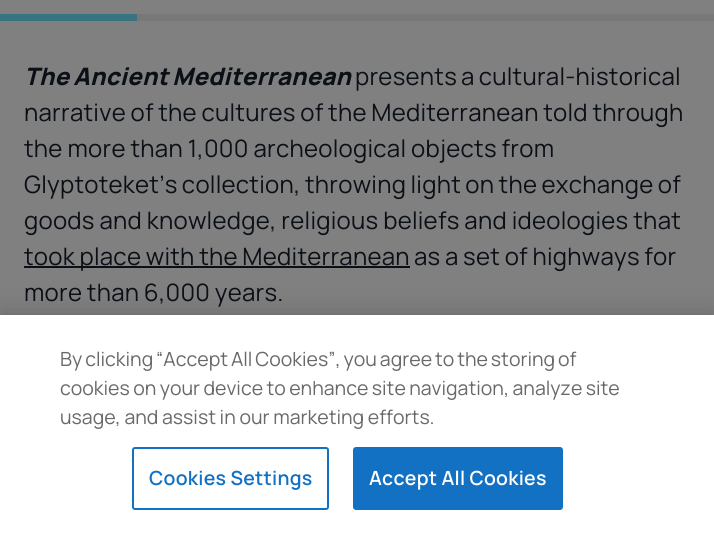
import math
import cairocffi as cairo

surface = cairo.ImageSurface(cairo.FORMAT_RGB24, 714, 533)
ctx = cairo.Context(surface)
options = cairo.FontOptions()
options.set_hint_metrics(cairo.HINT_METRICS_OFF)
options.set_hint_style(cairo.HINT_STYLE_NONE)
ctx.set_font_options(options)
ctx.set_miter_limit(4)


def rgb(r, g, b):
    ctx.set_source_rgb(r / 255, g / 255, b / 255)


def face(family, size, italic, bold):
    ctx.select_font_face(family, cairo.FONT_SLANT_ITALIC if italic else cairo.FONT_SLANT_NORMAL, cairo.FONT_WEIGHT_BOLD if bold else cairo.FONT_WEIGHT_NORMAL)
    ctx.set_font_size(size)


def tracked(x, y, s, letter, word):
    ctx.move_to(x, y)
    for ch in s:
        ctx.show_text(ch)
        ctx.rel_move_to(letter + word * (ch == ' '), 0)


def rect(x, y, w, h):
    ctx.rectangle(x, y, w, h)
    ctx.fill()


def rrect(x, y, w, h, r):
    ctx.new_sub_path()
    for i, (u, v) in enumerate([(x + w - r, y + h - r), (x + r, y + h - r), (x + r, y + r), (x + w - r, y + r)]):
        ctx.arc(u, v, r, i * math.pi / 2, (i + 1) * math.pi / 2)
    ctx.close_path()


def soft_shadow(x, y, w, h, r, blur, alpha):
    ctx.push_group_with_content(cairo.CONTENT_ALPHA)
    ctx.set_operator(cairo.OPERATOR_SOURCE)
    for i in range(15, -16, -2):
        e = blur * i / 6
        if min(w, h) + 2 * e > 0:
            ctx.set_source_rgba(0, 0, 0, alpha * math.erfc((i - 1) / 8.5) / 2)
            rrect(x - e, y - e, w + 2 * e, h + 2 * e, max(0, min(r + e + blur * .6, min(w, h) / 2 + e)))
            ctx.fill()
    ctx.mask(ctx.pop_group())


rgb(128, 128, 128)
ctx.paint()
rgb(120, 120, 120)
rect(137, 14, 577, 7)
rgb(56, 116, 127)
rect(0, 14, 137, 7)
face('Manrope ExtraBold', 24, 1, 0)
rgb(11, 15, 22)
tracked(24, 85, 'The Ancient Mediterranean', 0.25, -1)
face('Manrope', 24, 0, 0)
tracked(355, 85, 'presents a cultural-historical', 0.25, -1)
tracked(24, 121, 'narrative of the cultures of the Mediterranean told through', 0.25, -0.5)
tracked(24, 157, 'the more than 1,000 archeological objects from', 0.25, -0.25)
tracked(24, 193, 'Glyptoteket’s collection, throwing light on the exchange of', 0.25, -0.75)
tracked(24, 229, 'goods and knowledge, religious beliefs and ideologies that', 0.25, -0.25)
rect(24, 266, 386, 2)
tracked(24, 265, 'took place with the Mediterranean', 0.25, -0.5)
tracked(414, 265, 'as a set of highways for', 0.25, -0.5)
tracked(24, 301, 'more than 6,000 years.', 0.25, -0.5)
rgb(0, 0, 0)
soft_shadow(0, 315, 714, 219, 0, 13.5, 0.2)
rgb(255, 255, 255)
rect(0, 315, 714, 218)
face('Manrope', 19.5, 0, 0)
rgb(105, 105, 104)
tracked(60, 366, 'By clicking “Accept All Cookies”, you agree to the storing of', 0, -1)
tracked(60, 395, 'cookies on your device to enhance site navigation, analyze site', 0, -0.5)
tracked(60, 424, 'usage, and assist in our marketing efforts.', 0, -0.25)
rrect(133, 448, 195, 61, 2)
rgb(19, 113, 195)
ctx.stroke()
face('Manrope SemiBold', 19.5, 0, 0)
tracked(149, 485, 'Cookies Settings', 0.25, 0)
rrect(354, 448, 208, 61, 2)
ctx.fill_preserve()
ctx.stroke()
rgb(255, 255, 255)
tracked(369, 485, 'Accept All Cookies', 0.25, 0)
surface.write_to_png('render.png')
